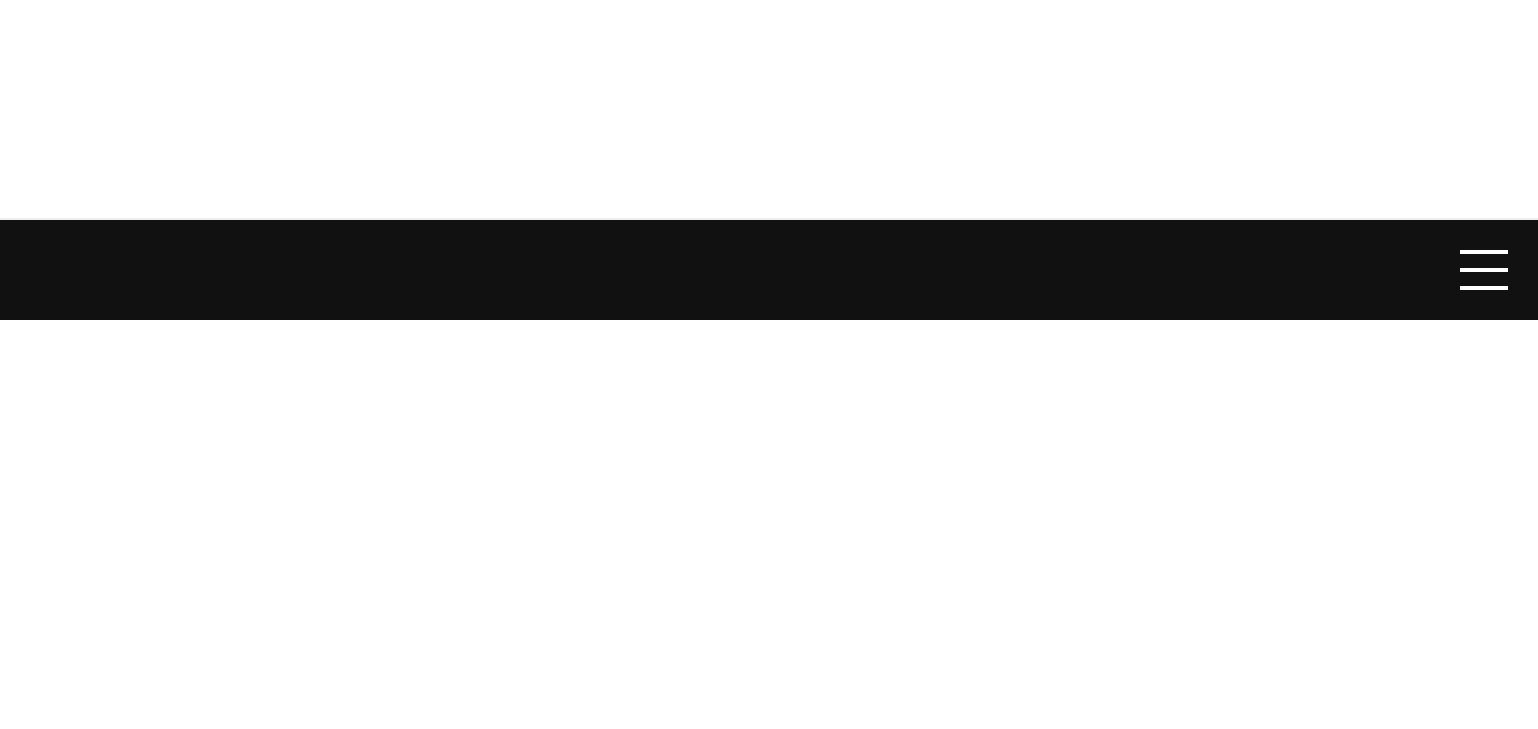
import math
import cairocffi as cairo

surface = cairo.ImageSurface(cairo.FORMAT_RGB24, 1538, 729)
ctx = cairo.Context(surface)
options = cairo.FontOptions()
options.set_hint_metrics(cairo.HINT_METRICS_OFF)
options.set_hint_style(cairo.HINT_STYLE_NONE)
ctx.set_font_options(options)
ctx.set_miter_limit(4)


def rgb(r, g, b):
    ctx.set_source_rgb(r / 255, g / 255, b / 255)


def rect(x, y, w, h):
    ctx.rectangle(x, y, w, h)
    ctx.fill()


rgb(255, 255, 255)
ctx.paint()
rgb(238, 238, 238)
rect(0, 218, 1538, 2)
rgb(17, 17, 17)
rect(0, 220, 1538, 100)
rgb(255, 255, 255)
rect(1460, 250, 48, 4)
rect(1460, 268, 48, 4)
rect(1460, 286, 48, 4)
surface.write_to_png('render.png')
